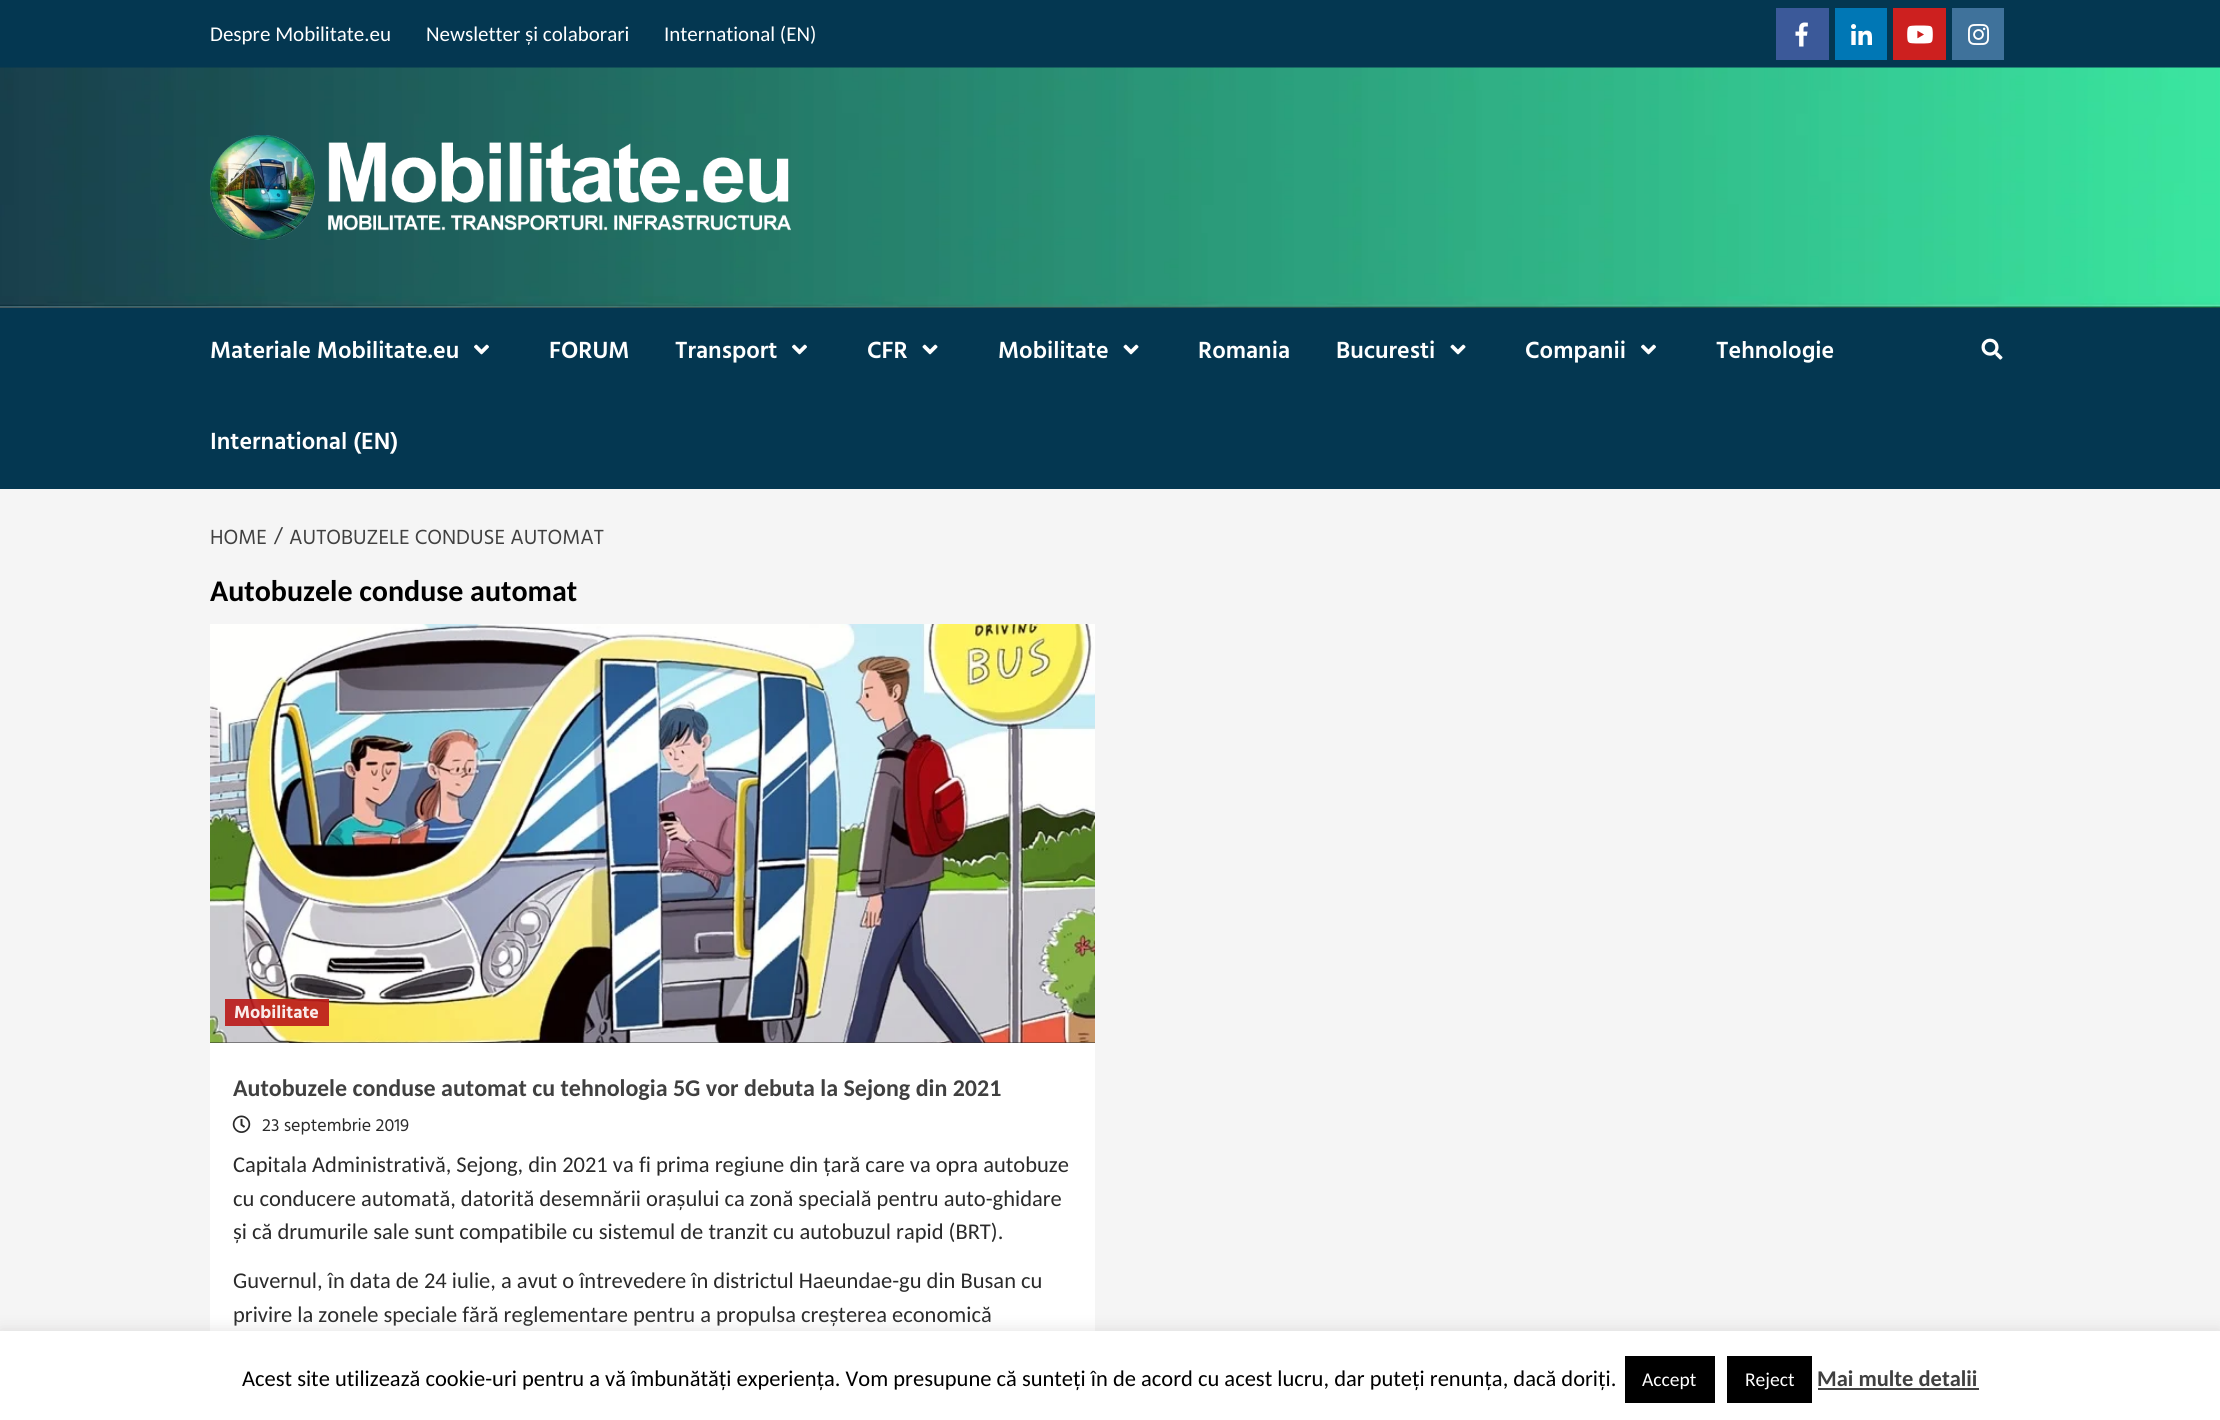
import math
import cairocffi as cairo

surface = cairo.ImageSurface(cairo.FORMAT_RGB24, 2220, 1420)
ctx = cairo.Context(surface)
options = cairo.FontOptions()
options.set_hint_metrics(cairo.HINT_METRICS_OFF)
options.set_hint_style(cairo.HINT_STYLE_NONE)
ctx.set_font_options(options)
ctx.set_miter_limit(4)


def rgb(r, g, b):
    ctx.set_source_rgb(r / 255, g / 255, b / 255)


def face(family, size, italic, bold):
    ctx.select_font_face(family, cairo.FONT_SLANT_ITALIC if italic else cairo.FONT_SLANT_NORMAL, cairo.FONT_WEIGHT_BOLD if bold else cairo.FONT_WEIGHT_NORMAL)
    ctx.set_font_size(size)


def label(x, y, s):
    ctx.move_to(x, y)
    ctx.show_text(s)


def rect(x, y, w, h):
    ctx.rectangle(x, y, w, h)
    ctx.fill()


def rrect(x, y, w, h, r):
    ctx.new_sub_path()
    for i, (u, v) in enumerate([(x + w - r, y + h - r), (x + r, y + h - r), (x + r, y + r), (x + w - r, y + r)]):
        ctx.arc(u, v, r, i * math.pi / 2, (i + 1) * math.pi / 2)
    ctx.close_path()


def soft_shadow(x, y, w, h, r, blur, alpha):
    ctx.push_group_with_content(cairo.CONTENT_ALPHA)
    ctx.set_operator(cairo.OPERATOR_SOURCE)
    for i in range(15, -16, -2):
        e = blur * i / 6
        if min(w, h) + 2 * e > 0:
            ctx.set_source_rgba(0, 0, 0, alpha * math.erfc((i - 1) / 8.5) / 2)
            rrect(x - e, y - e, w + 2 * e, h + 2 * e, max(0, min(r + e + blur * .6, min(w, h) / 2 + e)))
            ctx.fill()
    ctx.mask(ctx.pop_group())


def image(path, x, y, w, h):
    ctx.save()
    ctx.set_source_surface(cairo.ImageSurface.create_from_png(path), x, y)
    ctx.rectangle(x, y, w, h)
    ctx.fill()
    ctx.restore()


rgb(245, 245, 245)
ctx.paint()
rgb(4, 55, 81)
rect(0, 0, 2220, 68)
face('Carlito', 21, 0, 0)
rgb(255, 255, 255)
label(210, 41, 'Despre Mobilitate.eu')
label(426, 41, 'Newsletter și colaborari')
label(664, 41, 'International (EN)')
rgb(59, 89, 153)
rect(1776, 8, 53, 52)
image('image0.png', 1795, 22, 13, 25)
rgb(0, 119, 181)
rect(1835, 8, 52, 52)
image('image1.png', 1851, 24, 21, 21)
rgb(205, 32, 31)
rect(1893, 8, 53, 52)
image('image2.png', 1907, 25, 26, 19)
rgb(63, 114, 155)
rect(1952, 8, 52, 52)
image('image3.png', 1968, 24, 21, 21)
rgb(42, 42, 42)
rect(0, 307, 2220, 1)
image('image4.png', 0, 67, 2220, 241)
image('image5.png', 210, 135, 581, 105)
rgb(4, 55, 81)
rect(0, 308, 2220, 181)
face('Hind SemiBold', 24, 0, 0)
rgb(255, 255, 255)
label(210, 358, 'Materiale Mobilitate.eu')
image('image6.png', 474, 344, 15, 11)
label(549, 358, 'FORUM')
label(675, 358, 'Transport')
image('image6.png', 792, 344, 15, 11)
label(867, 358, 'CFR')
image('image7.png', 922, 344, 16, 11)
label(998, 358, 'Mobilitate')
image('image7.png', 1123, 344, 16, 11)
label(1198, 358, 'Romania')
label(1336, 358, 'Bucuresti')
image('image7.png', 1450, 344, 16, 11)
label(1525, 358, 'Companii')
image('image6.png', 1641, 344, 15, 11)
label(1716, 358, 'Tehnologie')
label(210, 449, 'International (EN)')
image('image8.png', 1981, 338, 22, 22)
face('Hind', 21, 0, 0)
rgb(64, 64, 64)
label(210, 544, 'HOME')
label(274, 542, '/')
label(289, 544, 'AUTOBUZELE CONDUSE AUTOMAT')
face('Carlito', 30, 0, 1)
rgb(0, 0, 0)
label(210, 601, 'Autobuzele conduse automat')
rgb(255, 255, 255)
rect(210, 1043, 885, 288)
rgb(42, 42, 42)
rect(210, 1042, 885, 1)
image('image9.png', 210, 624, 885, 419)
ctx.set_source_rgba(0.733, 0.098, 0.098, 0.9)
rect(225, 999, 104, 27)
face('Hind', 18, 0, 1)
rgb(249, 234, 233)
label(234, 1018, 'Mobilitate')
face('Carlito', 24, 0, 1)
rgb(64, 64, 64)
label(233, 1096, 'Autobuzele conduse automat cu tehnologia 5G vor debuta la Sejong din 2021')
image('image10.png', 232, 1115, 19, 18)
face('Hind', 18, 0, 0)
rgb(42, 42, 42)
label(262, 1131, '23 septembrie 2019')
face('Carlito', 22.5, 0, 0)
label(233, 1172, 'Capitala Administrativă, Sejong, din 2021 va fi prima regiune din țară care va opra autobuze')
label(233, 1206, 'cu conducere automată, datorită desemnării orașului ca zonă specială pentru auto-ghidare')
label(233, 1239, 'și că drumurile sale sunt compatibile cu sistemul de tranzit cu autobuzul rapid (BRT).')
label(233, 1288, 'Guvernul, în data de 24 iulie, a avut o întrevedere în districtul Haeundae-gu din Busan cu')
label(233, 1322, 'privire la zonele speciale fără reglementare pentru a propulsa creșterea economică')
rgb(172, 171, 171)
soft_shadow(0, 1329, 2220, 90, 0, 7.5, 0.3)
rgb(255, 255, 255)
rect(0, 1331, 2220, 89)
rgb(0, 0, 0)
label(242, 1386, 'Acest site utilizează cookie-uri pentru a vă îmbunătăți experiența. Vom presupune că sunteți în de acord cu acest lucru, dar puteți renunța, dacă doriți.')
rect(1625, 1356, 90, 47)
face('Carlito', 19.5, 0, 0)
rgb(255, 255, 255)
label(1642, 1386, 'Accept')
rgb(0, 0, 0)
rect(1727, 1356, 85, 47)
rgb(255, 255, 255)
label(1745, 1386, 'Reject')
face('Carlito', 22.5, 0, 1)
rgb(64, 64, 64)
label(1817, 1386, 'Mai multe detalii')
rgb(68, 68, 68)
rect(1818, 1388, 161, 2)
surface.write_to_png('render.png')
